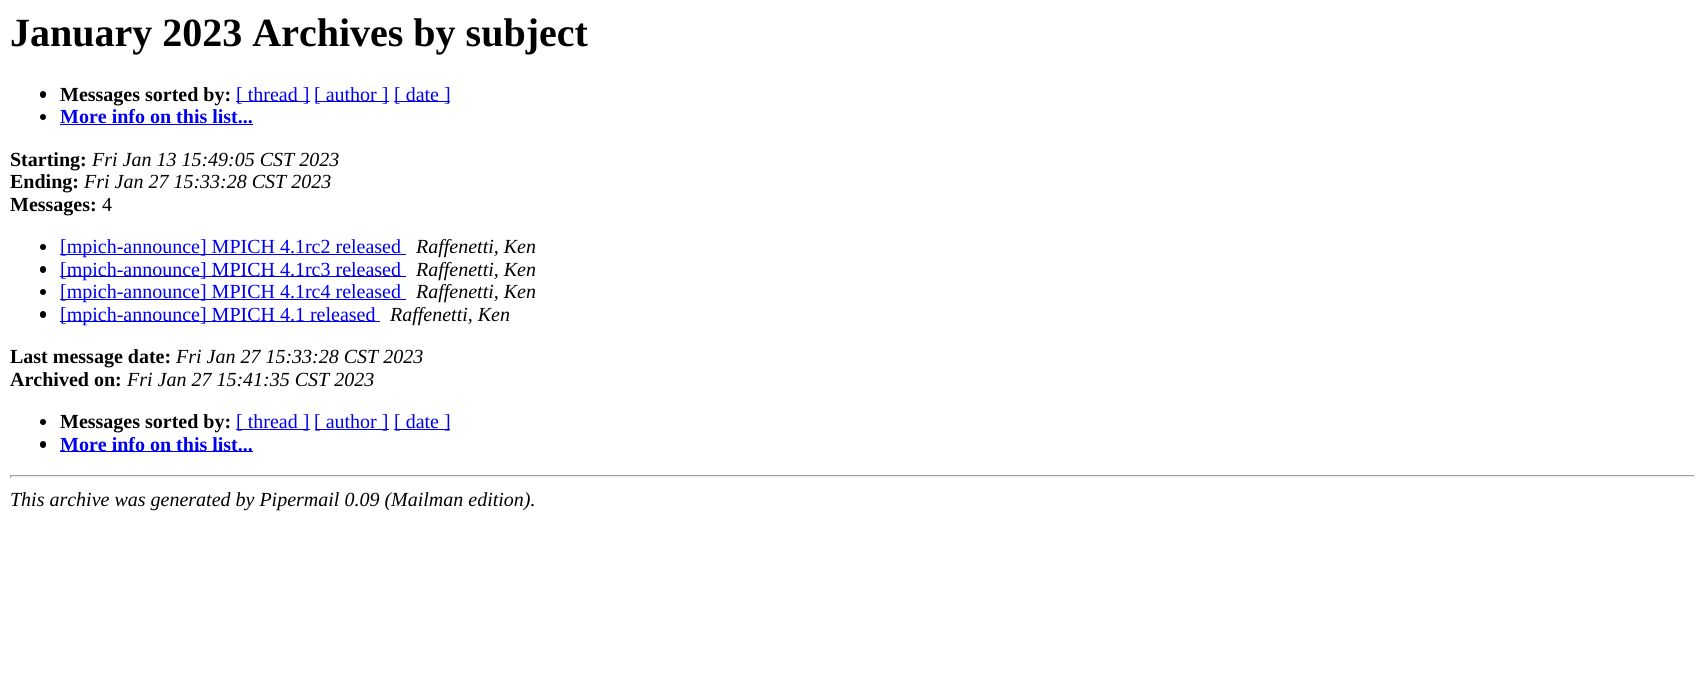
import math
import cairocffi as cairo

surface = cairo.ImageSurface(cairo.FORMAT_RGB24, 1705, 680)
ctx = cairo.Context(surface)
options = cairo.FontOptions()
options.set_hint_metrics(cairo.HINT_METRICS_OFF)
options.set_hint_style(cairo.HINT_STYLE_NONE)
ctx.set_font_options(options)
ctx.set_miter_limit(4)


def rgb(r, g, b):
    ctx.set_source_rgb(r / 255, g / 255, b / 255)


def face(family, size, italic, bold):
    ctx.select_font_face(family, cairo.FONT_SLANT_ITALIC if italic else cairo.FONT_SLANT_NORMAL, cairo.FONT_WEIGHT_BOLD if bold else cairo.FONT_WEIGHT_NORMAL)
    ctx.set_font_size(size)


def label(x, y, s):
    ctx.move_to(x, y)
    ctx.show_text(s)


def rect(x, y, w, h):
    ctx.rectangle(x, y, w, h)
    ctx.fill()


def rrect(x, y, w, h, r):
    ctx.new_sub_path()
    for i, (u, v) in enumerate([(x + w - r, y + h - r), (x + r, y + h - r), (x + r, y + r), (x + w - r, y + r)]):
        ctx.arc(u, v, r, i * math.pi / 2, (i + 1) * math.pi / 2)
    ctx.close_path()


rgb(255, 255, 255)
ctx.paint()
face('Liberation Serif', 40, 0, 1)
rgb(0, 0, 0)
label(10, 46, 'January 2023 Archives by subject')
rrect(40, 91, 6, 7, 3)
ctx.fill()
face('Liberation Serif', 20, 0, 1)
label(60, 101, 'Messages sorted by:')
rgb(0, 0, 238)
rect(236, 101, 74, 1)
face('Liberation Serif', 20, 0, 0)
label(236, 101, '[ thread ]')
rect(315, 101, 74, 1)
label(314, 101, '[ author ]')
rect(394, 101, 56, 1)
label(394, 101, '[ date ]')
rgb(0, 0, 0)
ctx.new_path()
ctx.arc(43, 117, 3, 0, 2 * math.pi)
ctx.fill()
face('Liberation Serif', 20, 0, 1)
rgb(0, 0, 238)
label(60, 123, 'More info on this list...')
rect(60, 124, 193, 1)
rgb(0, 0, 0)
label(10, 166, 'Starting:')
face('Liberation Serif', 20, 1, 0)
label(92, 166, 'Fri Jan 13 15:49:05 CST 2023')
face('Liberation Serif', 20, 0, 1)
label(10, 188, 'Ending:')
face('Liberation Serif', 20, 1, 0)
label(84, 188, 'Fri Jan 27 15:33:28 CST 2023')
face('Liberation Serif', 20, 0, 1)
label(10, 211, 'Messages:')
face('Liberation Serif', 20, 0, 0)
label(102, 211, '4')
ctx.new_path()
ctx.arc(43, 247, 3, 0, 2 * math.pi)
ctx.fill()
rgb(0, 0, 238)
rect(60, 254, 346, 1)
label(60, 253, '[mpich-announce] MPICH 4.1rc2 released')
face('Liberation Serif', 20, 1, 0)
rgb(0, 0, 0)
label(416, 253, 'Raffenetti, Ken')
rrect(40, 266, 6, 7, 3)
ctx.fill()
rgb(0, 0, 238)
rect(60, 276, 346, 1)
face('Liberation Serif', 20, 0, 0)
label(60, 276, '[mpich-announce] MPICH 4.1rc3 released')
face('Liberation Serif', 20, 1, 0)
rgb(0, 0, 0)
label(416, 276, 'Raffenetti, Ken')
ctx.new_path()
ctx.arc(43, 292, 3, 0, 2 * math.pi)
ctx.fill()
rgb(0, 0, 238)
rect(60, 299, 346, 1)
face('Liberation Serif', 20, 0, 0)
label(60, 298, '[mpich-announce] MPICH 4.1rc4 released')
face('Liberation Serif', 20, 1, 0)
rgb(0, 0, 0)
label(416, 298, 'Raffenetti, Ken')
rrect(40, 311, 6, 7, 3)
ctx.fill()
rgb(0, 0, 238)
rect(60, 321, 320, 1)
face('Liberation Serif', 20, 0, 0)
label(60, 321, '[mpich-announce] MPICH 4.1 released')
face('Liberation Serif', 20, 1, 0)
rgb(0, 0, 0)
label(390, 321, 'Raffenetti, Ken')
face('Liberation Serif', 20, 0, 1)
label(10, 363, 'Last message date:')
face('Liberation Serif', 20, 1, 0)
label(176, 363, 'Fri Jan 27 15:33:28 CST 2023')
face('Liberation Serif', 20, 0, 1)
label(10, 386, 'Archived on:')
face('Liberation Serif', 20, 1, 0)
label(127, 386, 'Fri Jan 27 15:41:35 CST 2023')
ctx.new_path()
ctx.arc(43, 422, 3, 0, 2 * math.pi)
ctx.fill()
face('Liberation Serif', 20, 0, 1)
label(60, 428, 'Messages sorted by:')
rgb(0, 0, 238)
rect(236, 429, 74, 1)
face('Liberation Serif', 20, 0, 0)
label(236, 428, '[ thread ]')
rect(315, 429, 74, 1)
label(314, 428, '[ author ]')
rect(394, 429, 56, 1)
label(394, 428, '[ date ]')
rgb(0, 0, 0)
rrect(40, 441, 6, 7, 3)
ctx.fill()
rgb(0, 0, 238)
rect(60, 451, 193, 1)
face('Liberation Serif', 20, 0, 1)
label(60, 451, 'More info on this list...')
rgb(159, 159, 159)
rect(10, 475, 1685, 1)
rgb(238, 238, 238)
rect(1694, 475, 1, 3)
rect(10, 476, 1685, 1)
rgb(159, 159, 159)
rect(10, 475, 1, 3)
face('Liberation Serif', 20, 1, 0)
rgb(0, 0, 0)
label(10, 506, 'This archive was generated by Pipermail 0.09 (Mailman edition).')
surface.write_to_png('render.png')
